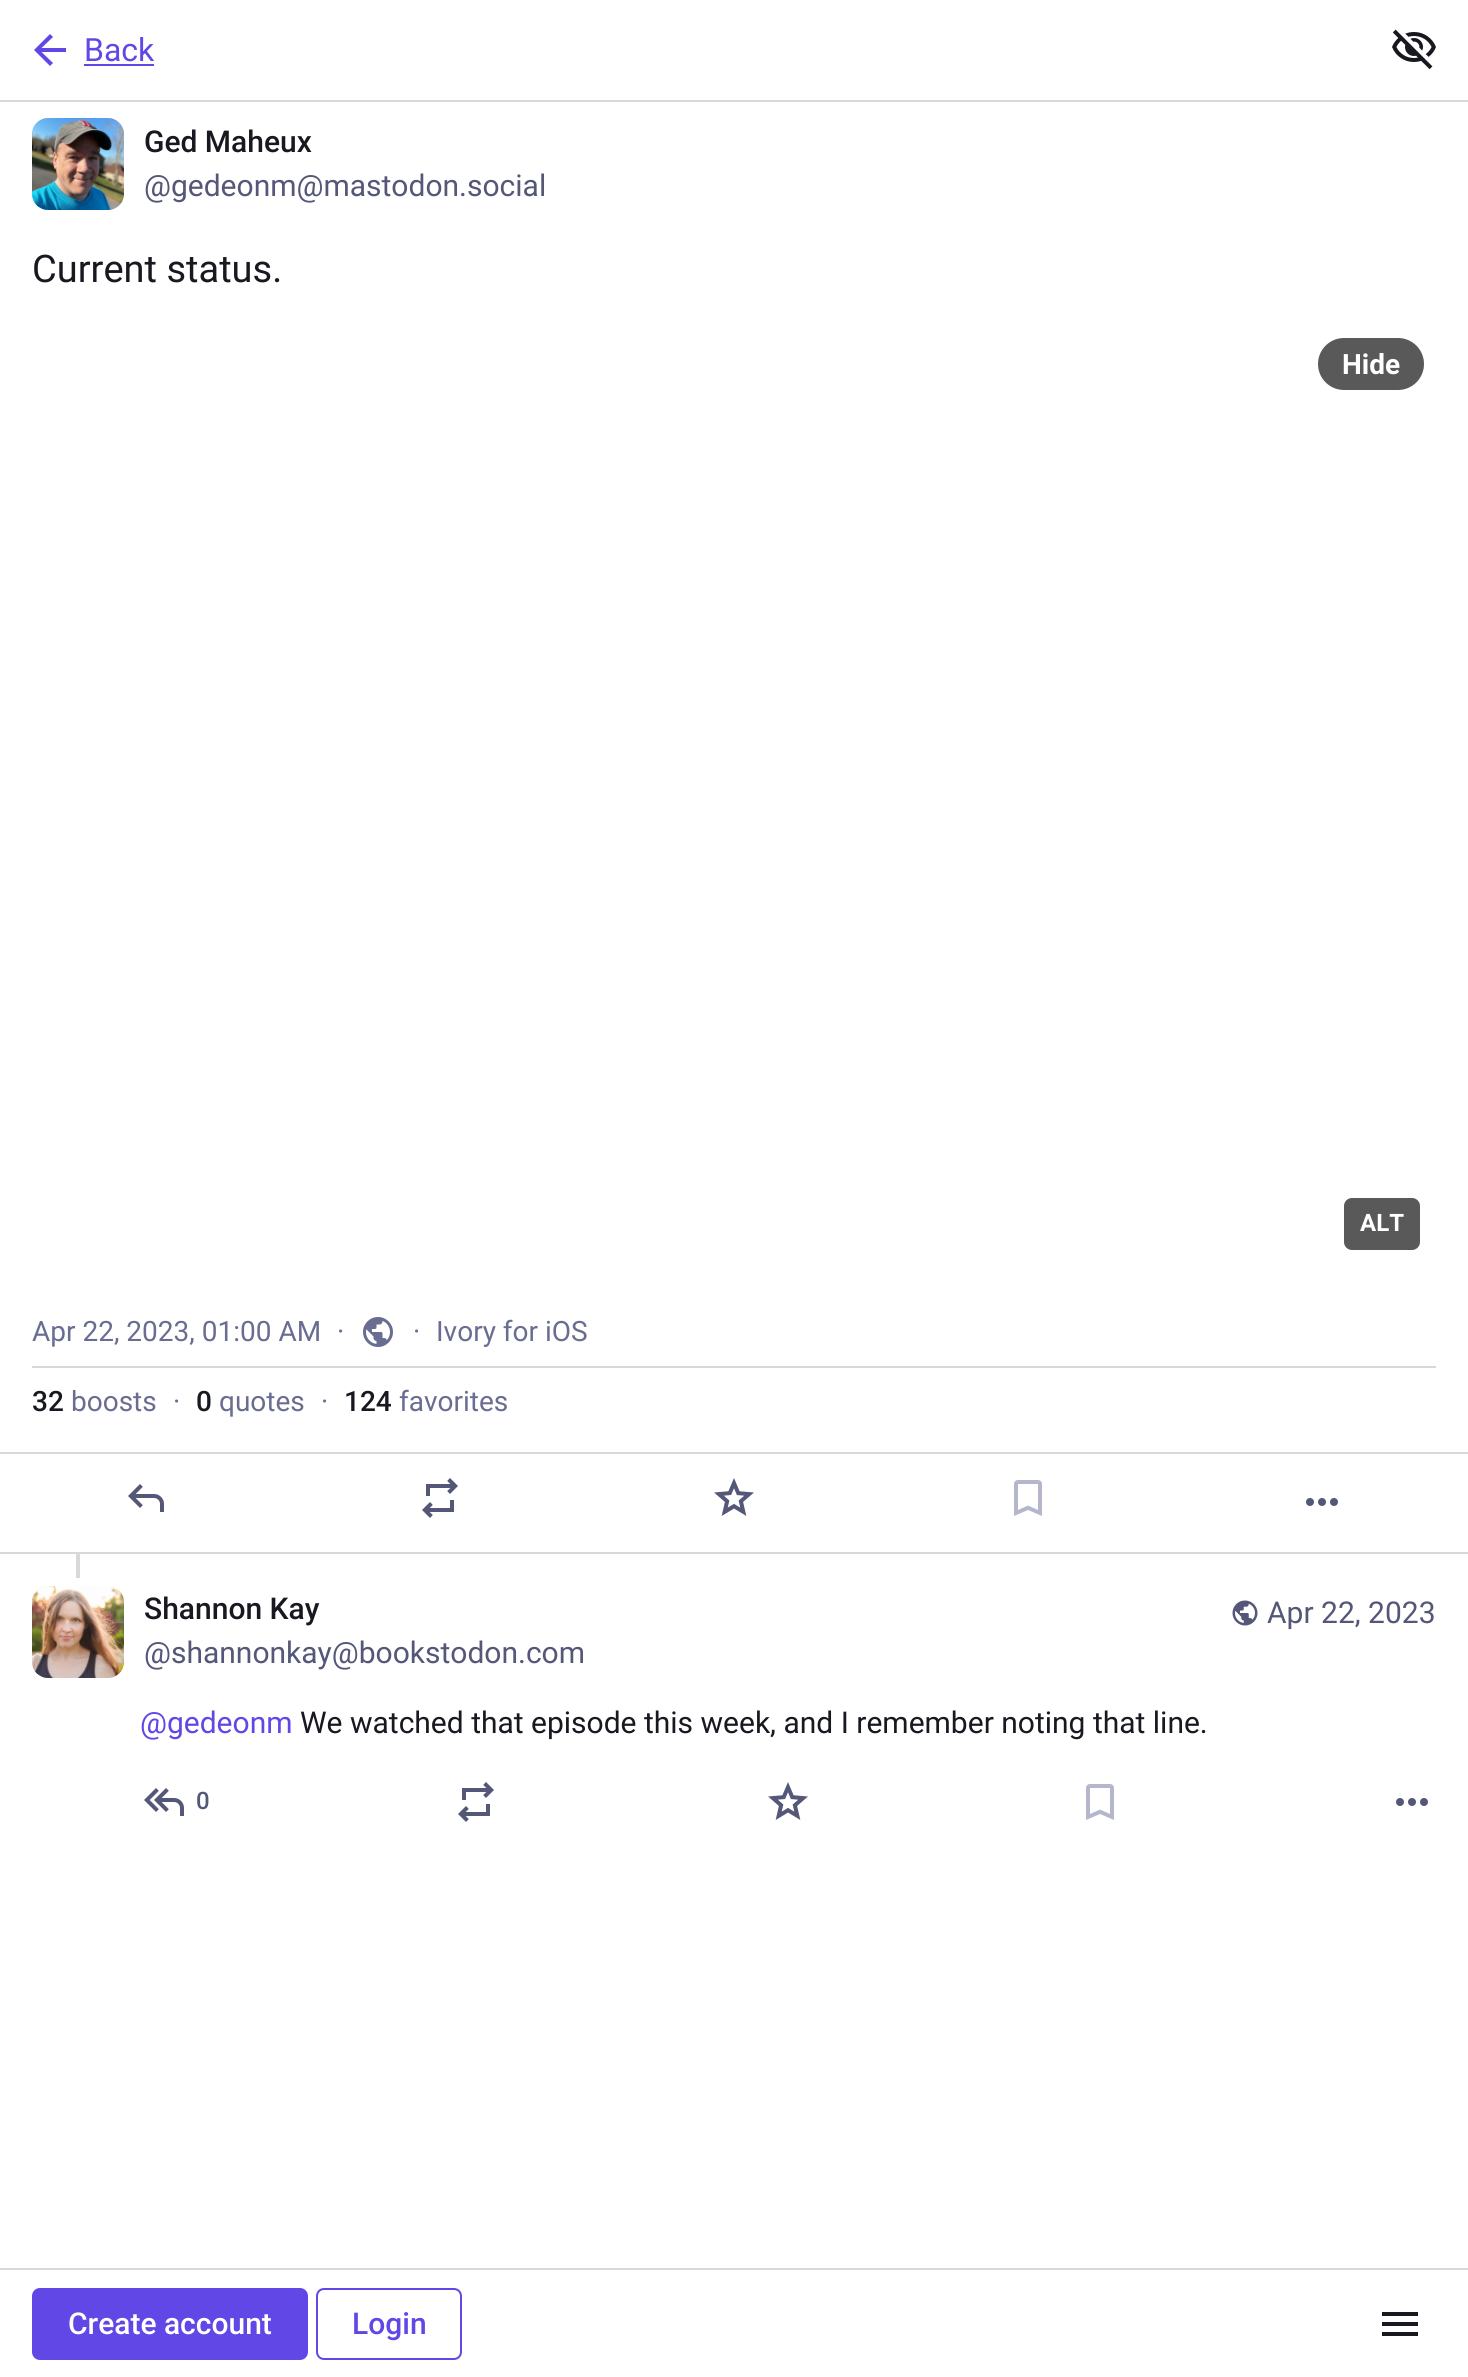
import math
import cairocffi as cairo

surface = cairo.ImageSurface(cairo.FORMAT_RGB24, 1468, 2377)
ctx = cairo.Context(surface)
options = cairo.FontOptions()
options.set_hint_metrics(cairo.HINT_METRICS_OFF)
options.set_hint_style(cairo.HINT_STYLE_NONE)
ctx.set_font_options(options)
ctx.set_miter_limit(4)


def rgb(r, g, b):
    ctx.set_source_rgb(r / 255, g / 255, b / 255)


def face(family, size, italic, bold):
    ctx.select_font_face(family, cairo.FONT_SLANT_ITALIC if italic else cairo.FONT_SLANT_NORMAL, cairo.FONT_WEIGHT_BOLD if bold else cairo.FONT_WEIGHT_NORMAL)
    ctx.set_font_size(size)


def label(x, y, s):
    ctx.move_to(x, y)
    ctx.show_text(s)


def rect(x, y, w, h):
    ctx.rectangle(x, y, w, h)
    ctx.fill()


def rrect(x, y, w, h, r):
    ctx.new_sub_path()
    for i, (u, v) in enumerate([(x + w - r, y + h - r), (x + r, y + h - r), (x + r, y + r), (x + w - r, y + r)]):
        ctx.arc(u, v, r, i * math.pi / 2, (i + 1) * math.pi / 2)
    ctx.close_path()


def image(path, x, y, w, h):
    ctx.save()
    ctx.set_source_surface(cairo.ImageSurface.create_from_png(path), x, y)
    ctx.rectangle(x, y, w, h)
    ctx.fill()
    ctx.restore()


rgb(255, 255, 255)
ctx.paint()
rgb(216, 216, 218)
rect(0, 100, 1468, 2)
rgb(97, 71, 230)
ctx.new_path()
ctx.move_to(41.5, 52)
ctx.line_to(53, 63)
ctx.line_to(50, 66)
ctx.line_to(34, 50)
ctx.line_to(50, 34)
ctx.line_to(53, 37)
ctx.line_to(41.5, 48)
ctx.line_to(66, 48)
ctx.line_to(66, 52)
ctx.close_path()
ctx.fill()
face('Roboto', 32, 0, 0)
label(84, 61, 'Back')
rect(84, 64, 70, 2)
image('image0.png', 1392, 29, 44, 41)
rgb(236, 237, 241)
rrect(32, 118, 92, 92, 16)
ctx.fill()
image('image1.png', 32, 118, 92, 92)
face('Roboto Medium', 30, 0, 0)
rgb(24, 24, 33)
label(144, 152, 'Ged Maheux')
face('Roboto', 30, 0, 0)
rgb(84, 87, 120)
label(144, 196, '@gedeonm@mastodon.social')
face('Roboto', 38, 0, 0)
rgb(24, 24, 33)
label(32, 282, 'Current status.')
rgb(89, 89, 89)
rrect(1318, 338, 106, 52, 26)
ctx.fill()
face('Roboto', 28, 0, 1)
rgb(255, 255, 255)
label(1342, 374, 'Hide')
rgb(89, 89, 89)
rrect(1344, 1198, 76, 52, 8)
ctx.fill()
face('Roboto', 24, 0, 1)
rgb(255, 255, 255)
label(1360, 1231, 'ALT')
rgb(216, 216, 218)
rect(32, 1366, 1404, 2)
face('Roboto', 28, 0, 0)
rgb(105, 109, 145)
label(32, 1341, 'Apr 22, 2023, 01:00 AM')
label(337, 1341, '·')
image('image2.png', 363, 1317, 30, 30)
label(413, 1341, '·')
label(436, 1341, 'Ivory for iOS')
face('Roboto Medium', 28, 0, 0)
rgb(24, 24, 33)
label(32, 1411, '32')
face('Roboto', 28, 0, 0)
rgb(105, 109, 145)
label(71, 1411, 'boosts')
label(173, 1411, '·')
face('Roboto Medium', 28, 0, 0)
rgb(24, 24, 33)
label(196, 1411, '0')
face('Roboto', 28, 0, 0)
rgb(105, 109, 145)
label(219, 1411, 'quotes')
label(321, 1411, '·')
face('Roboto Medium', 28, 0, 0)
rgb(24, 24, 33)
label(344, 1411, '124')
face('Roboto', 28, 0, 0)
rgb(105, 109, 145)
label(399, 1411, 'favorites')
rgb(216, 216, 218)
rect(0, 1452, 1468, 2)
rect(0, 1552, 1468, 2)
image('image3.png', 128, 1484, 36, 28)
image('image4.png', 422, 1478, 36, 40)
image('image5.png', 714, 1478, 40, 38)
image('image6.png', 1014, 1480, 28, 36)
image('image7.png', 1306, 1498, 32, 8)
rect(76, 1554, 4, 24)
rgb(236, 237, 241)
rrect(32, 1586, 92, 92, 16)
ctx.fill()
image('image8.png', 32, 1586, 92, 92)
face('Roboto Medium', 30, 0, 0)
rgb(24, 24, 33)
label(144, 1619, 'Shannon Kay')
face('Roboto', 30, 0, 0)
rgb(84, 87, 120)
label(144, 1663, '@shannonkay@bookstodon.com')
image('image9.png', 1232, 1600, 26, 26)
label(1267, 1623, 'Apr 22, 2023')
rgb(97, 71, 230)
label(140, 1733, '@gedeonm')
rgb(24, 24, 33)
label(300, 1733, 'We watched that episode this week, and I remember noting that line.')
image('image10.png', 144, 1788, 40, 28)
face('Roboto Medium', 24, 0, 0)
rgb(84, 87, 120)
label(196, 1809, '0')
image('image4.png', 458, 1782, 36, 40)
image('image5.png', 768, 1782, 40, 38)
image('image6.png', 1086, 1784, 28, 36)
image('image7.png', 1396, 1798, 32, 8)
rgb(216, 216, 218)
rect(0, 2268, 1468, 2)
rgb(97, 71, 230)
rrect(32, 2288, 276, 72, 8)
ctx.fill()
face('Roboto Medium', 30, 0, 0)
rgb(255, 255, 255)
label(68, 2334, 'Create account')
rrect(317, 2289, 144, 70, 7)
rgb(97, 71, 230)
ctx.stroke()
label(352, 2334, 'Login')
rgb(24, 24, 33)
ctx.new_path()
ctx.move_to(1382, 2336)
ctx.line_to(1382, 2332)
ctx.line_to(1418, 2332)
ctx.line_to(1418, 2336)
ctx.close_path()
ctx.move_to(1382, 2326)
ctx.line_to(1382, 2322)
ctx.line_to(1418, 2322)
ctx.line_to(1418, 2326)
ctx.close_path()
ctx.move_to(1382, 2316)
ctx.line_to(1382, 2312)
ctx.line_to(1418, 2312)
ctx.line_to(1418, 2316)
ctx.close_path()
ctx.fill()
surface.write_to_png('render.png')
